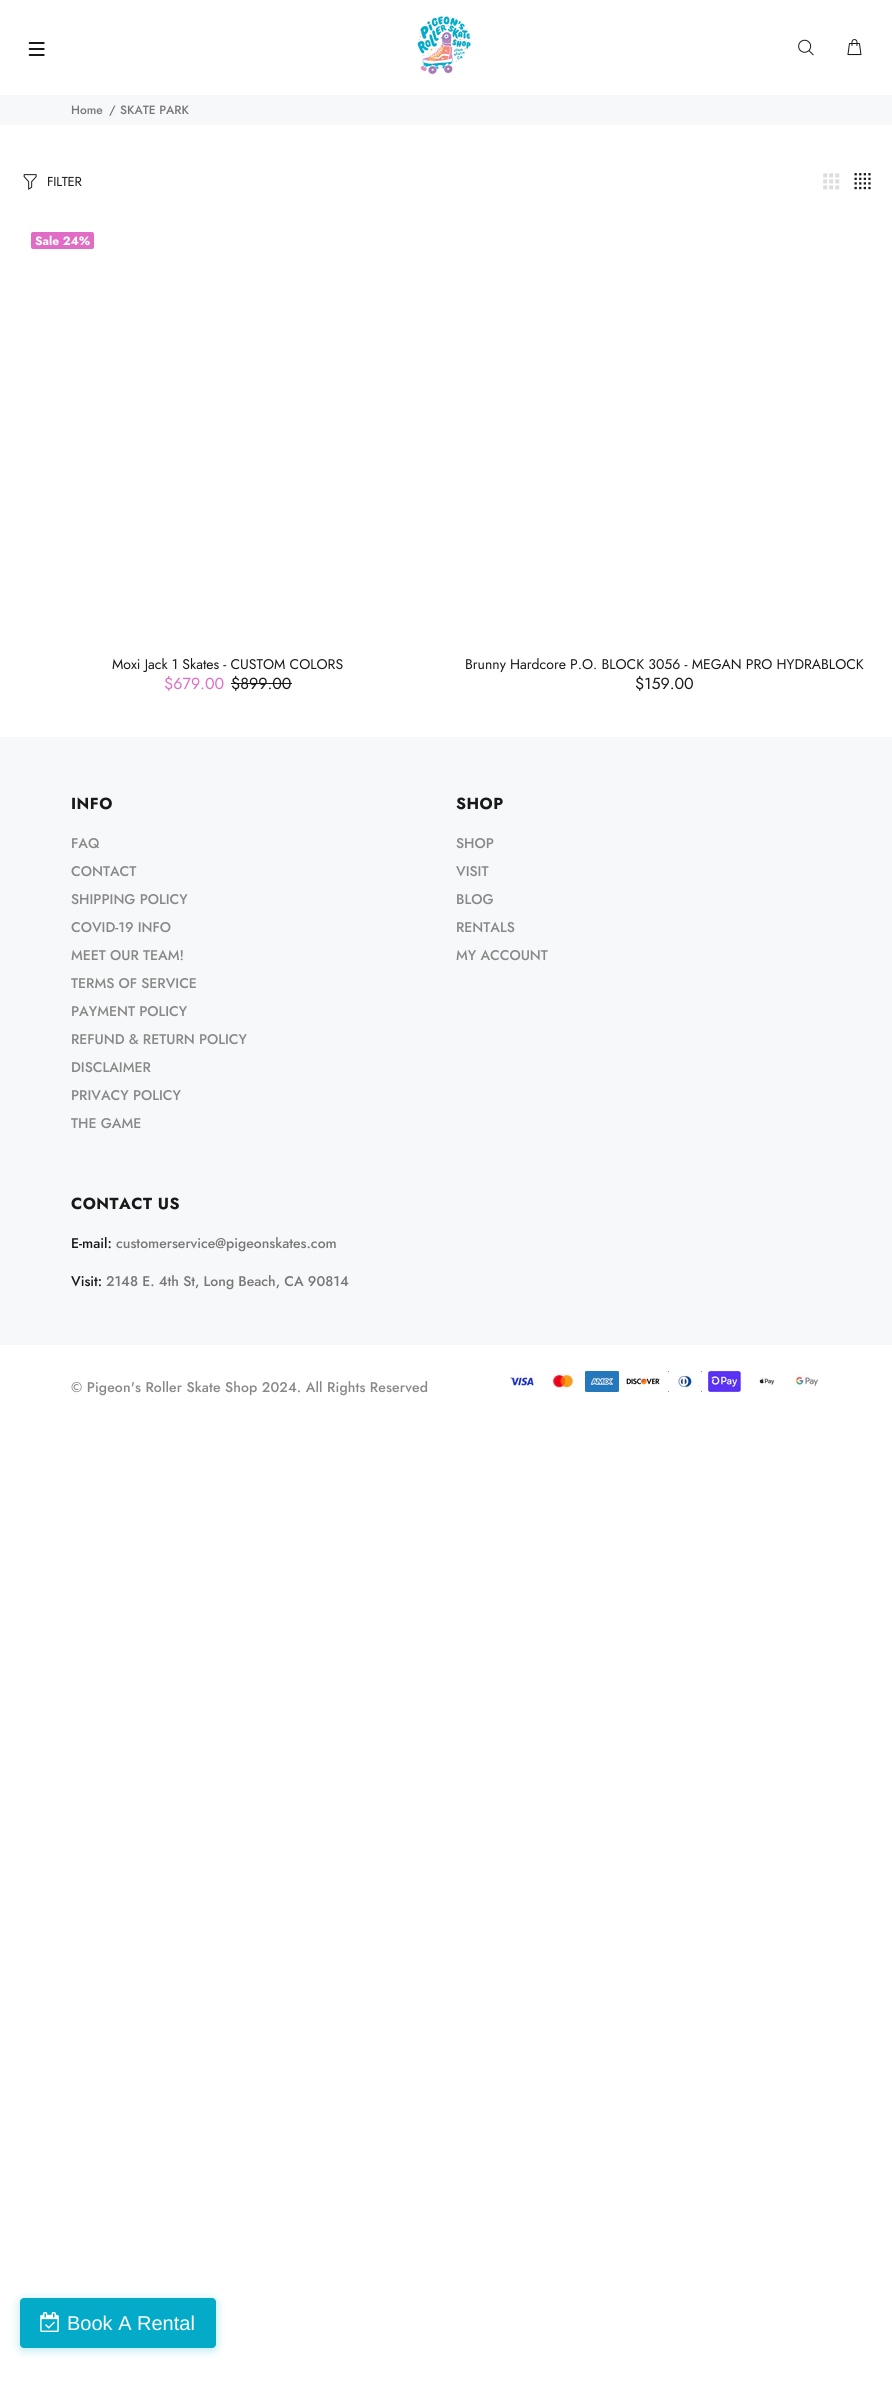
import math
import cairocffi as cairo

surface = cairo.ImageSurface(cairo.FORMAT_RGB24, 892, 2398)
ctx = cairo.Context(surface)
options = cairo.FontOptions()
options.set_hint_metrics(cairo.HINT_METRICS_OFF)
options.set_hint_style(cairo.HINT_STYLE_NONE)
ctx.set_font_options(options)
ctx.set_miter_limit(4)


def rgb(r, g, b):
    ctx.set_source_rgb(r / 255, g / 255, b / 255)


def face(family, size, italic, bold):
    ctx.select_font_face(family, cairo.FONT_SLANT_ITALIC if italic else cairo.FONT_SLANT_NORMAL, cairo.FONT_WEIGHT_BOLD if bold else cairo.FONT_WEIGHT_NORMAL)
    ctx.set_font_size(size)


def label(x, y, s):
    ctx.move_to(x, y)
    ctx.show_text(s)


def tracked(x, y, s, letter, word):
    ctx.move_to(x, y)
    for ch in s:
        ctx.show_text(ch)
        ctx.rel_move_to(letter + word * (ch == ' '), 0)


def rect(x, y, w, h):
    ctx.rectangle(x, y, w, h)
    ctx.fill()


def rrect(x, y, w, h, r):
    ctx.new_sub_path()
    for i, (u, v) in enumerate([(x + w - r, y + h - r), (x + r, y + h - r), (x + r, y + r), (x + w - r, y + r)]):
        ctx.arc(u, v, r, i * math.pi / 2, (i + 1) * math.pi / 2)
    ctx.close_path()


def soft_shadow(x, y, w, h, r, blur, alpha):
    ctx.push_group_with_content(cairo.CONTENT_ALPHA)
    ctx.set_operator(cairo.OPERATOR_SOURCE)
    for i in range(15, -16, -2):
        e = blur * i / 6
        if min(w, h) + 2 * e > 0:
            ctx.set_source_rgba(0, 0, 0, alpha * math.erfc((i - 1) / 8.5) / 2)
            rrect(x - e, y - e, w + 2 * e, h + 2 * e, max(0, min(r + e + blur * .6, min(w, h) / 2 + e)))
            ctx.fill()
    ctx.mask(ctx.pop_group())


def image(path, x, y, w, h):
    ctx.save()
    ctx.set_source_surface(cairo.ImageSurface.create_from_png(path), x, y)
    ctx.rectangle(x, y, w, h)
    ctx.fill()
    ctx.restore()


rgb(255, 255, 255)
ctx.paint()
image('image0.png', 28, 42, 17, 14)
image('image1.png', 417, 16, 54, 59)
image('image2.png', 798, 39, 16, 17)
image('image3.png', 847, 39, 15, 17)
rgb(247, 248, 250)
rect(0, 95, 892, 30)
face('Jost Medium', 12, 0, 0)
rgb(119, 119, 119)
label(71, 114, 'Home')
label(109, 114, '/')
label(120, 114, 'SKATE PARK')
image('image4.png', 23, 174, 14, 16)
face('Jost', 13, 0, 0)
rgb(25, 25, 25)
tracked(47, 186, 'FILTER', -0.25, 0)
image('image5.png', 823, 173, 17, 17)
image('image6.png', 854, 173, 17, 17)
rgb(225, 108, 197)
rrect(31, 232, 63, 17, 2)
ctx.fill()
face('Jost', 12, 0, 1)
rgb(255, 255, 255)
label(35, 245, 'Sale 24%')
face('Jost', 14, 0, 0)
rgb(25, 25, 25)
label(112, 669, 'Moxi Jack 1 Skates - CUSTOM COLORS')
face('Jost', 16, 0, 0)
rgb(225, 108, 197)
label(164, 689, '$679.00')
rgb(25, 25, 25)
label(231, 689, '$899.00')
rect(231, 683, 61, 1)
face('Jost', 14, 0, 0)
label(465, 669, 'Brunny Hardcore P.O. BLOCK 3056 - MEGAN PRO HYDRABLOCK')
face('Jost', 16, 0, 0)
label(635, 689, '$159.00')
rgb(247, 248, 250)
rect(0, 737, 892, 608)
face('Jost', 16, 0, 1)
rgb(25, 25, 25)
tracked(71, 809, 'INFO', 0.5, 0)
face('Jost Medium', 14, 0, 0)
rgb(136, 136, 136)
label(71, 848, 'FAQ')
label(71, 876, 'CONTACT')
label(71, 904, 'SHIPPING POLICY')
label(71, 932, 'COVID-19 INFO')
label(71, 960, 'MEET OUR TEAM!')
label(71, 988, 'TERMS OF SERVICE')
label(71, 1016, 'PAYMENT POLICY')
label(71, 1044, 'REFUND & RETURN POLICY')
label(71, 1072, 'DISCLAIMER')
label(71, 1100, 'PRIVACY POLICY')
label(71, 1128, 'THE GAME')
face('Jost', 16, 0, 1)
rgb(25, 25, 25)
tracked(456, 809, 'SHOP', 0.5, 0)
face('Jost Medium', 14, 0, 0)
rgb(136, 136, 136)
label(456, 848, 'SHOP')
label(456, 876, 'VISIT')
label(456, 904, 'BLOG')
label(456, 932, 'RENTALS')
label(456, 960, 'MY ACCOUNT')
face('Jost', 16, 0, 1)
rgb(25, 25, 25)
tracked(71, 1209, 'CONTACT US', 0.5, 0)
face('Jost Medium', 14, 0, 0)
label(71, 1248, 'E-mail:')
rgb(119, 119, 119)
label(116, 1248, 'customerservice@pigeonskates.com')
rgb(25, 25, 25)
label(71, 1286, 'Visit:')
rgb(119, 119, 119)
label(106, 1286, '2148 E. 4th St, Long Beach, CA 90814')
rgb(136, 136, 136)
tracked(71, 1392, '© Pigeon\'s Roller Skate Shop 2024. All Rights Reserved', 0.15, 0)
image('image7.png', 504, 1371, 32, 16)
image('image8.png', 547, 1371, 32, 20)
image('image9.png', 585, 1371, 34, 21)
image('image10.png', 626, 1378, 35, 7)
image('image11.png', 668, 1371, 34, 21)
image('image12.png', 708, 1371, 33, 21)
image('image13.png', 759, 1377, 16, 10)
image('image14.png', 793, 1371, 25, 16)
rgb(4, 171, 200)
soft_shadow(20, 2300, 196, 50, 4, 5, 0.3)
rgb(4, 171, 200)
rrect(20.5, 2298.5, 195, 49, 3.5)
ctx.fill_preserve()
ctx.set_line_width(1)
ctx.stroke()
image('image15.png', 40, 2312, 19, 20)
face('Liberation Sans', 20, 0, 0)
rgb(255, 255, 255)
label(67, 2330, 'Book A Rental')
surface.write_to_png('render.png')
